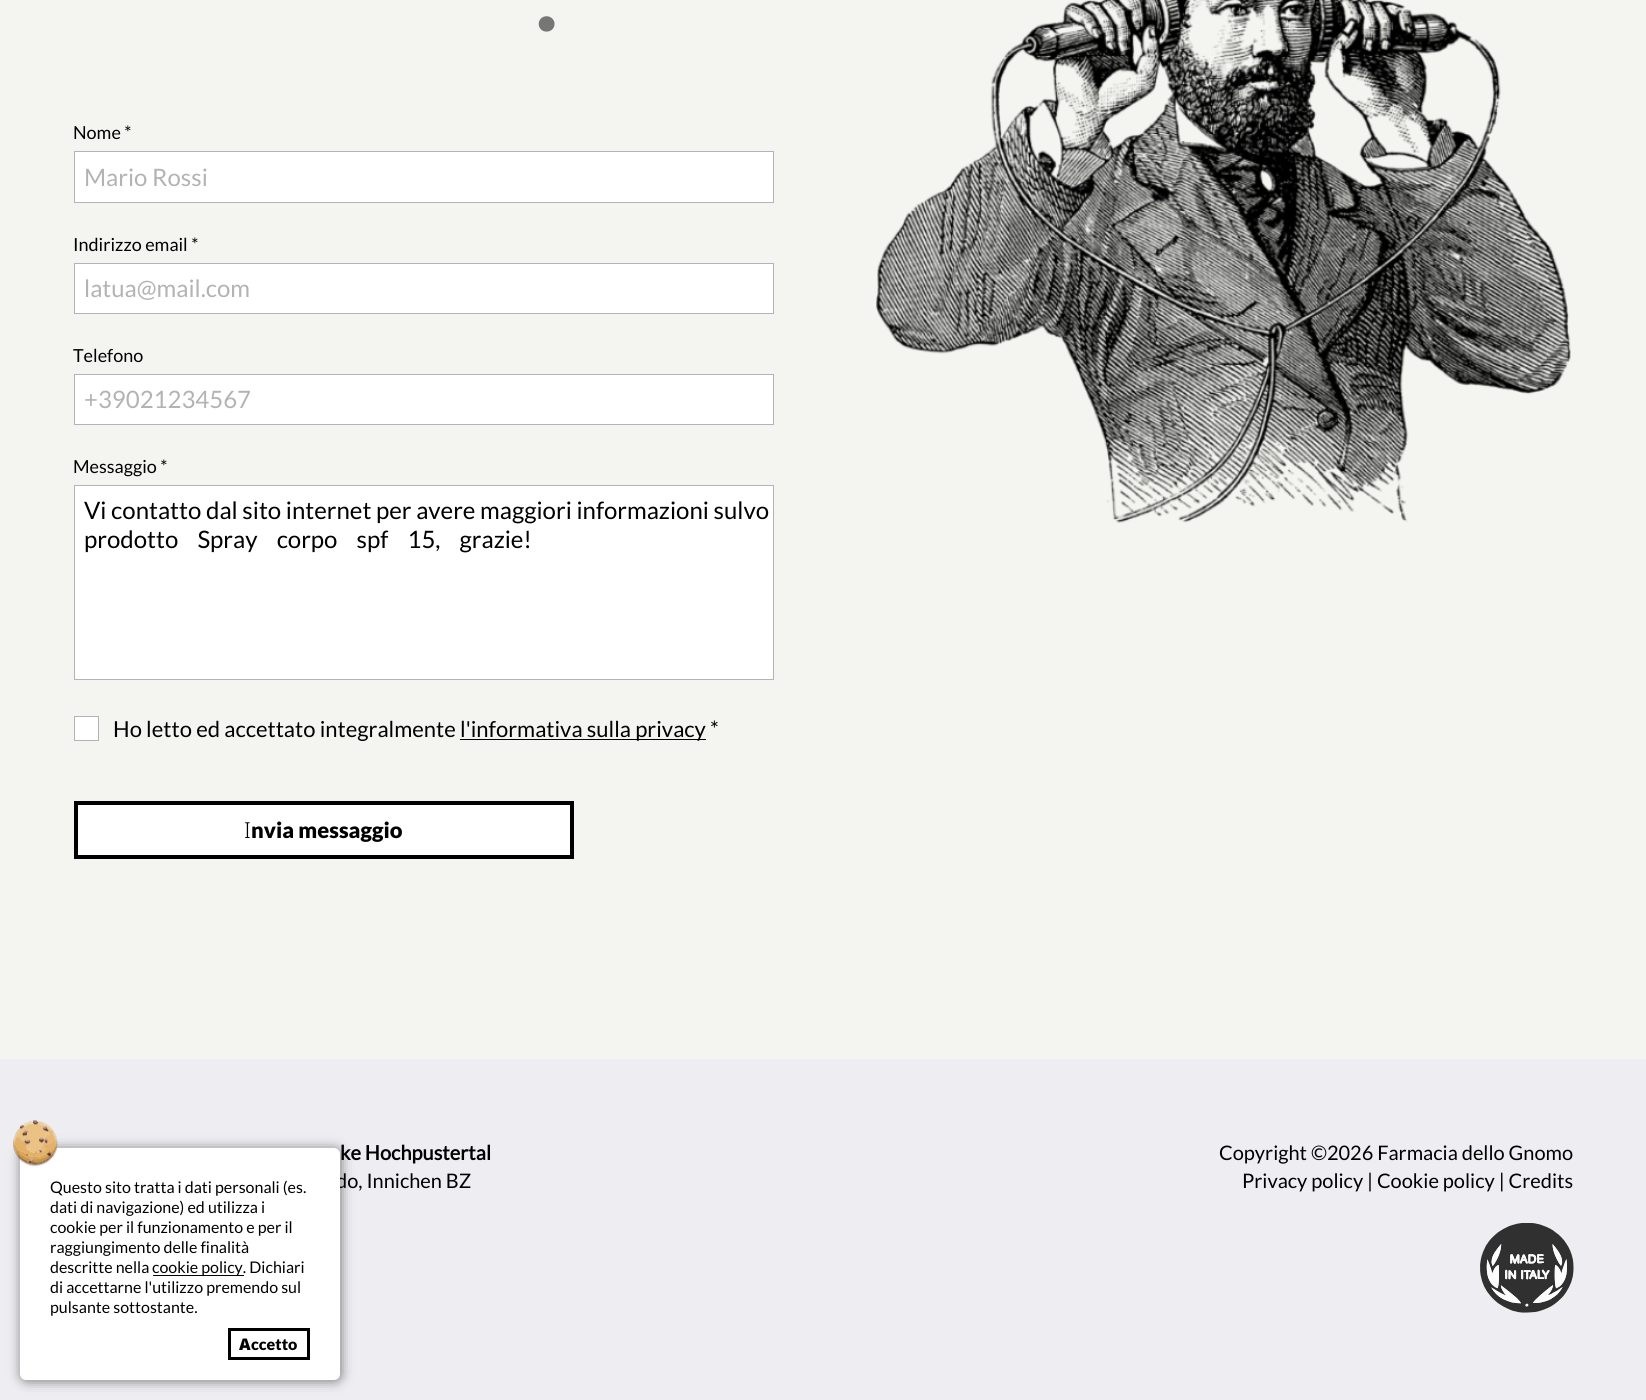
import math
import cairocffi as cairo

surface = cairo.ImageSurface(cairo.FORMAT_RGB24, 1646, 1400)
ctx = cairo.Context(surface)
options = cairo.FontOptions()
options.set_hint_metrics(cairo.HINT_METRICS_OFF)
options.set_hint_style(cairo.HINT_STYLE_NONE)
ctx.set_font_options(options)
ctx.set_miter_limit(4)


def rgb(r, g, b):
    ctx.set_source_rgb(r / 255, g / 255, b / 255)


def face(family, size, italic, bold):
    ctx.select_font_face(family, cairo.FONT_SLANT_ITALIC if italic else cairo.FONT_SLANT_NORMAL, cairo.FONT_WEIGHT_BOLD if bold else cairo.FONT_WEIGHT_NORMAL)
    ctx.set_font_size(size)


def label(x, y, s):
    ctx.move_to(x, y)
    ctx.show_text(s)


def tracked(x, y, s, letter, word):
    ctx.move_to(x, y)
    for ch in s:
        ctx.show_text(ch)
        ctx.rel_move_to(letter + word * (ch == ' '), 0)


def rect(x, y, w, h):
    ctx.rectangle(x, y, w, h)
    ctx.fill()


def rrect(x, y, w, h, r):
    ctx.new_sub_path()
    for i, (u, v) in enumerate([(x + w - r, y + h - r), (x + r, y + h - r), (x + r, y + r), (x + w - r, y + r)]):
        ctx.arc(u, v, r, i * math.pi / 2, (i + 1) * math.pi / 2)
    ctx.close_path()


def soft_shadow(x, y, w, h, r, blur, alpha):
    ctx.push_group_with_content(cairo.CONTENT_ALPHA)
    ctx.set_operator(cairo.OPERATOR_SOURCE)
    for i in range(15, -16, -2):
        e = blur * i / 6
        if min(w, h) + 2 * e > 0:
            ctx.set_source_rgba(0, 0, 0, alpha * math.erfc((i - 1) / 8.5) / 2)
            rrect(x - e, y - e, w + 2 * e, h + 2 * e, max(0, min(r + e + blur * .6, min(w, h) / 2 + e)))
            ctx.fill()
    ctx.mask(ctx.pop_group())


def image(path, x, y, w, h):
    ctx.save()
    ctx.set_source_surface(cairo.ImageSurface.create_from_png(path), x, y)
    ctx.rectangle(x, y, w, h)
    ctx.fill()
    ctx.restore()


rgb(244, 244, 240)
ctx.paint()
face('Lato Black', 90, 0, 0)
rgb(118, 118, 116)
label(536, 31, '.')
face('Lato', 18, 0, 0)
rgb(0, 0, 0)
label(73, 139, 'Nome *')
rgb(255, 255, 255)
ctx.rectangle(74.5, 151.5, 699, 51)
ctx.fill_preserve()
rgb(179, 179, 179)
ctx.set_line_width(1)
ctx.stroke()
face('Lato', 24, 0, 0)
label(84, 186, 'Mario Rossi')
face('Lato', 18, 0, 0)
rgb(0, 0, 0)
label(73, 251, 'Indirizzo email *')
rgb(255, 255, 255)
ctx.rectangle(74.5, 263.5, 699, 50)
ctx.fill_preserve()
rgb(179, 179, 179)
ctx.stroke()
face('Lato', 24, 0, 0)
label(84, 297, 'latua@mail.com')
face('Lato', 18, 0, 0)
rgb(0, 0, 0)
label(73, 362, 'Telefono')
rgb(255, 255, 255)
ctx.rectangle(74.5, 374.5, 699, 50)
ctx.fill_preserve()
rgb(179, 179, 179)
ctx.stroke()
face('Lato', 24, 0, 0)
label(84, 408, '+39021234567')
face('Lato', 18, 0, 0)
rgb(0, 0, 0)
label(73, 473, 'Messaggio *')
rgb(255, 255, 255)
ctx.rectangle(74.5, 485.5, 699, 194)
ctx.fill_preserve()
rgb(179, 179, 179)
ctx.stroke()
face('Lato', 24, 0, 0)
rgb(0, 0, 0)
label(84, 519, 'Vi contatto dal sito internet per avere maggiori informazioni sulvo')
tracked(84, 548, 'prodotto Spray corpo spf 15, grazie!', 0, 14.5)
rgb(255, 255, 255)
ctx.rectangle(74.5, 716.5, 24, 24)
ctx.fill_preserve()
rgb(179, 179, 179)
ctx.stroke()
face('Lato', 22, 0, 0)
rgb(0, 0, 0)
label(113, 737, 'Ho letto ed accettato integralmente')
rect(460, 739, 246, 1)
label(460, 737, 'l\'informativa sulla privacy *')
rgb(255, 255, 255)
ctx.rectangle(76, 803, 496, 54)
ctx.fill_preserve()
rgb(0, 0, 0)
ctx.set_line_width(4)
ctx.stroke()
face('Noto Sans Light', 22, 0, 0)
label(244, 838, 'I')
face('Lato Black', 22, 0, 0)
label(251, 838, 'nvia messaggio')
image('image0.png', 876, 0, 695, 523)
rgb(238, 238, 242)
rect(0, 1059, 1646, 341)
face('Lato', 20, 0, 1)
rgb(0, 0, 0)
label(340, 1160, 'ke Hochpustertal')
face('Lato', 20, 0, 0)
label(336, 1188, 'do, Innichen BZ')
label(1219, 1160, 'Copyright ©2026 Farmacia dello Gnomo')
label(1242, 1188, 'Privacy policy | Cookie policy | Credits')
image('image1.png', 1480, 1223, 94, 90)
rgb(0, 0, 0)
soft_shadow(21, 1149, 320, 232, 6, 6, 0.5)
rgb(255, 255, 255)
rrect(20, 1148, 320, 232, 6)
ctx.fill()
image('image2.png', 13, 1119, 45, 48)
face('Lato', 16, 0, 0)
rgb(0, 0, 0)
label(50, 1193, 'Questo sito tratta i dati personali (es.')
label(50, 1213, 'dati di navigazione) ed utilizza i')
label(50, 1233, 'cookie per il funzionamento e per il')
label(50, 1253, 'raggiungimento delle finalità')
label(50, 1273, 'descritte nella')
rect(153, 1275, 91, 1)
label(152, 1273, 'cookie policy. Dichiari')
label(50, 1293, 'di accettarne l\'utilizzo premendo sul')
label(50, 1313, 'pulsante sottostante.')
ctx.rectangle(229.5, 1329.5, 79, 29)
ctx.set_line_width(3)
ctx.stroke()
face('Noto Sans Black', 16, 0, 0)
label(239, 1350, 'A')
face('Lato Black', 16, 0, 0)
label(251, 1350, 'ccetto')
surface.write_to_png('render.png')
